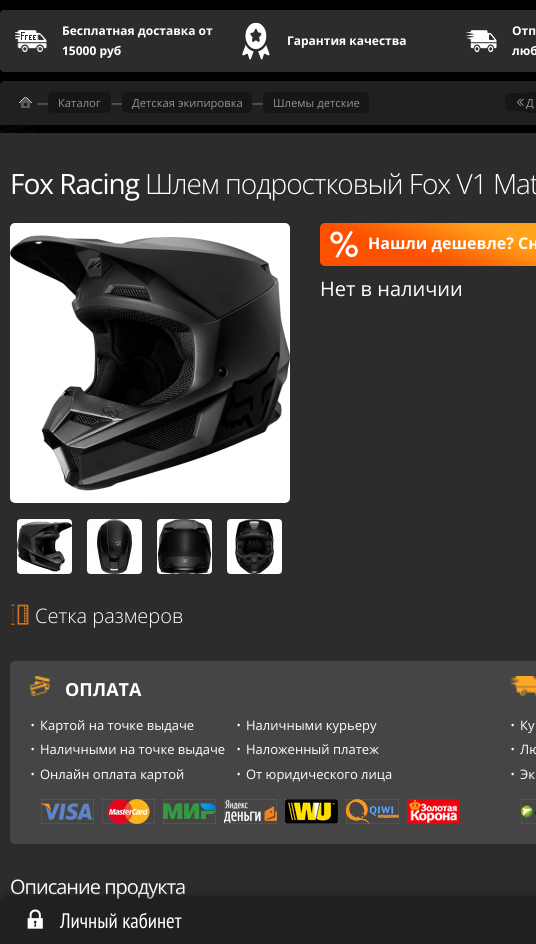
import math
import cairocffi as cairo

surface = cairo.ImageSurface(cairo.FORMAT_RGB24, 536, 944)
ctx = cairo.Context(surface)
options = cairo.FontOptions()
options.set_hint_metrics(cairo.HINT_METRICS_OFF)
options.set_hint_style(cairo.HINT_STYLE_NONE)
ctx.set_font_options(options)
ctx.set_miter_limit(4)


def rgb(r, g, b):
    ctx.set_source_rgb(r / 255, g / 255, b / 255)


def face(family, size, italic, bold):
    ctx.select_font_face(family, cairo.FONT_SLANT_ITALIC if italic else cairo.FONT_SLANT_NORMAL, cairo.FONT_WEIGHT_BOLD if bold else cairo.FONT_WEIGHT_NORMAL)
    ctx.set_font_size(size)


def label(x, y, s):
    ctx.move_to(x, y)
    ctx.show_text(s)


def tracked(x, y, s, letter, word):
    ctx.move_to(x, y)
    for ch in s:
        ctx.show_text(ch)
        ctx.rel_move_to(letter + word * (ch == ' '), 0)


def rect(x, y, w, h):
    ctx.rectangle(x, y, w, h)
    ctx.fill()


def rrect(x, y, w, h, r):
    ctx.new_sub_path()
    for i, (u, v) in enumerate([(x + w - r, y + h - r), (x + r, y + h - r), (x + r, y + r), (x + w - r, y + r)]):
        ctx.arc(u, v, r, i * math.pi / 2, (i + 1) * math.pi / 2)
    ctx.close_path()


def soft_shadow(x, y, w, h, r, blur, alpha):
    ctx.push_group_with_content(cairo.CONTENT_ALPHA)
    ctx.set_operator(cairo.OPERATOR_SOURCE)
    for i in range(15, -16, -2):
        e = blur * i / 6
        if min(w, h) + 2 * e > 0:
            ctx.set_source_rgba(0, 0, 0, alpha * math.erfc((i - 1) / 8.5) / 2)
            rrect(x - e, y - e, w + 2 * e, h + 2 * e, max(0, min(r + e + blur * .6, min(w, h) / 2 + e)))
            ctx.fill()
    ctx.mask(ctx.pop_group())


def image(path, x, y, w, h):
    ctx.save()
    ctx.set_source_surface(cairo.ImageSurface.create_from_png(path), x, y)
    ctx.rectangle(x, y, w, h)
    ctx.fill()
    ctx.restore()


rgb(255, 255, 255)
ctx.paint()
image('image0.png', 0, 0, 35, 133)
rgb(0, 0, 0)
rect(35, 0, 501, 133)
rgb(44, 44, 44)
rrect(0, 10, 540, 62, 4)
ctx.fill()
image('image1.png', 15, 30, 32, 23)
face('Open Sans', 12, 0, 1)
rgb(255, 255, 255)
label(62, 35, 'Бесплатная доставка от')
label(62, 55, '15000 руб')
image('image2.png', 242, 22, 28, 38)
label(287, 45, 'Гарантия качества')
image('image3.png', 466, 30, 31, 23)
label(512, 35, 'Отп')
label(512, 55, 'люб')
rgb(32, 32, 32)
ctx.new_path()
ctx.move_to(5, 81)
ctx.line_to(536, 81)
ctx.curve_to(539, 81, 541, 83, 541, 86)
ctx.line_to(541, 125)
ctx.line_to(0, 125)
ctx.line_to(0, 86)
ctx.curve_to(0, 83, 2, 81, 5, 81)
ctx.close_path()
ctx.fill()
image('image4.png', 19, 97, 13, 11)
face('Open Sans', 11.25, 0, 0)
rgb(146, 146, 146)
label(37, 107, '—')
rgb(22, 22, 22)
rrect(48, 92, 63, 21, 5)
ctx.fill()
rgb(146, 146, 146)
label(58, 107, 'Каталог')
label(111, 107, '—')
rgb(22, 22, 22)
rrect(122, 92, 130, 21, 5)
ctx.fill()
rgb(146, 146, 146)
label(132, 107, 'Детская экипировка')
label(252, 107, '—')
rgb(22, 22, 22)
rrect(263, 92, 106, 21, 5)
ctx.fill()
rgb(146, 146, 146)
label(273, 107, 'Шлемы детские')
rgb(22, 22, 22)
ctx.new_path()
ctx.move_to(510, 93)
ctx.line_to(527, 93)
ctx.line_to(527, 111)
ctx.line_to(510, 111)
ctx.curve_to(507, 111, 505, 109, 505, 106)
ctx.line_to(505, 98)
ctx.curve_to(505, 95, 507, 93, 510, 93)
ctx.close_path()
ctx.fill()
image('image5.png', 516, 98, 8, 8)
rect(526, 92, 10, 21)
rgb(146, 146, 146)
label(526, 107, 'Д')
rgb(44, 44, 44)
rect(0, 133, 536, 771)
face('Open Sans', 28, 0, 0)
rgb(255, 255, 255)
tracked(10, 194, 'Fox Racing', -1, 0)
face('Open Sans Light', 28, 0, 0)
tracked(145, 194, 'Шлем подростковый Fox V1 Mat', -1, 0)
image('image6.png', 320, 223, 216, 43)
image('image7.png', 330, 230, 28, 28)
face('Open Sans', 16, 0, 1)
label(368, 249, 'Нашли дешевле? Сн')
face('Open Sans', 20, 0, 0)
label(320, 296, 'Нет в наличии')
image('image8.png', 10, 223, 280, 280)
image('image9.png', 17, 519, 55, 55)
image('image10.png', 87, 519, 55, 55)
image('image11.png', 157, 519, 55, 55)
image('image12.png', 227, 519, 55, 55)
image('image13.png', 10, 604, 19, 21)
face('Open Sans Light', 20, 0, 0)
label(35, 623, 'Сетка размеров')
rgb(70, 69, 69)
rrect(10, 661, 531, 183, 5)
ctx.fill()
image('image14.png', 30, 676, 20, 20)
face('Open Sans', 18, 0, 1)
rgb(255, 255, 255)
label(65, 696, 'ОПЛАТА')
face('Open Sans', 20, 0, 0)
label(30, 732, '·')
face('Open Sans', 13, 0, 0)
label(40, 730, 'Картой на точке выдаче')
face('Open Sans', 20, 0, 0)
label(236, 732, '·')
face('Open Sans', 13, 0, 0)
label(246, 730, 'Наличными курьеру')
face('Open Sans', 20, 0, 0)
label(30, 756, '·')
face('Open Sans', 13, 0, 0)
label(40, 754, 'Наличными на точке выдаче')
face('Open Sans', 20, 0, 0)
label(236, 756, '·')
face('Open Sans', 13, 0, 0)
label(246, 754, 'Наложенный платеж')
face('Open Sans', 20, 0, 0)
label(30, 781, '·')
face('Open Sans', 13, 0, 0)
label(40, 779, 'Онлайн оплата картой')
face('Open Sans', 20, 0, 0)
label(236, 781, '·')
face('Open Sans', 13, 0, 0)
label(246, 779, 'От юридического лица')
image('image15.png', 41, 799, 53, 25)
image('image16.png', 102, 799, 53, 25)
image('image17.png', 163, 799, 53, 25)
image('image18.png', 224, 799, 53, 25)
image('image19.png', 285, 799, 53, 25)
image('image20.png', 346, 799, 53, 25)
image('image21.png', 407, 799, 53, 25)
image('image22.png', 510, 676, 26, 20)
face('Open Sans', 20, 0, 0)
label(510, 732, '·')
face('Open Sans', 13, 0, 0)
label(520, 730, 'Ку')
face('Open Sans', 20, 0, 0)
label(510, 756, '·')
face('Open Sans', 13, 0, 0)
label(520, 754, 'Лю')
face('Open Sans', 20, 0, 0)
label(510, 781, '·')
face('Open Sans', 13, 0, 0)
label(520, 779, 'Эк')
image('image23.png', 521, 799, 15, 25)
face('Open Sans', 20, 0, 0)
tracked(10, 894, 'Описание продукта', -1, 0)
rgb(0, 0, 0)
soft_shadow(6, 902, 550, 33, 0, 6.5, 1)
rgb(32, 32, 32)
ctx.new_path()
ctx.move_to(5, 899)
ctx.line_to(536, 899)
ctx.curve_to(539, 899, 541, 901, 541, 904)
ctx.line_to(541, 944)
ctx.line_to(0, 944)
ctx.line_to(0, 904)
ctx.curve_to(0, 901, 2, 899, 5, 899)
ctx.close_path()
ctx.fill()
image('image24.png', 27, 909, 16, 20)
face('PT Sans Narrow', 21, 0, 0)
rgb(255, 255, 255)
label(60, 928, 'Личный кабинет')
surface.write_to_png('render.png')
